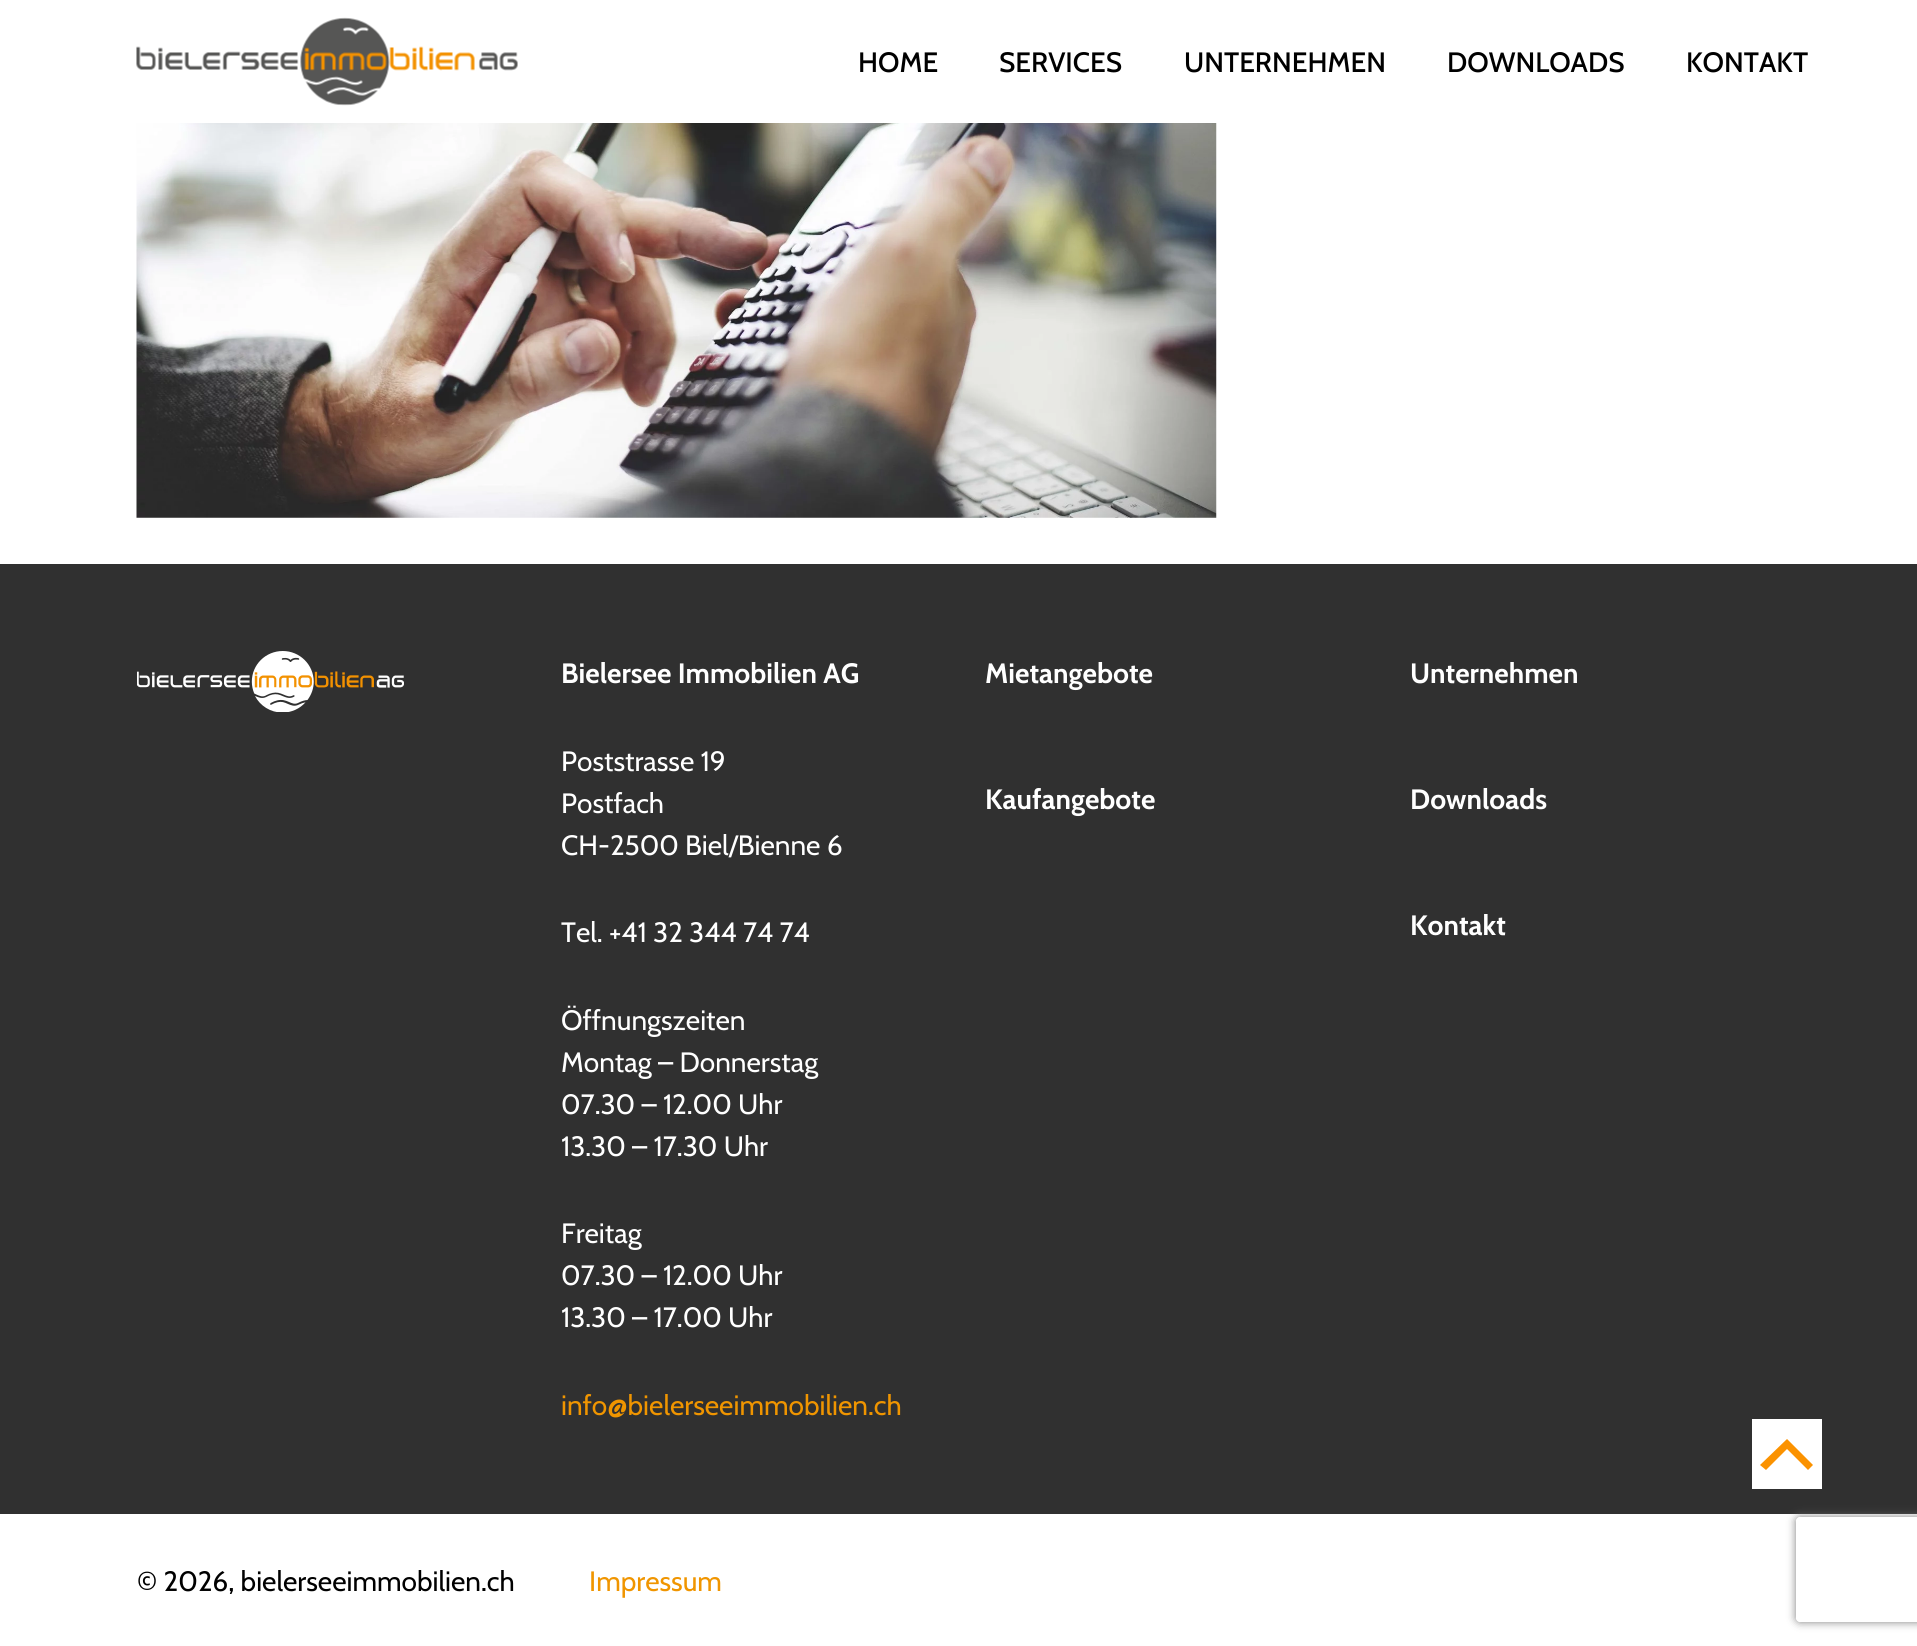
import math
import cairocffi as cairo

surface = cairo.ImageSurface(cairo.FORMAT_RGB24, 1917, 1646)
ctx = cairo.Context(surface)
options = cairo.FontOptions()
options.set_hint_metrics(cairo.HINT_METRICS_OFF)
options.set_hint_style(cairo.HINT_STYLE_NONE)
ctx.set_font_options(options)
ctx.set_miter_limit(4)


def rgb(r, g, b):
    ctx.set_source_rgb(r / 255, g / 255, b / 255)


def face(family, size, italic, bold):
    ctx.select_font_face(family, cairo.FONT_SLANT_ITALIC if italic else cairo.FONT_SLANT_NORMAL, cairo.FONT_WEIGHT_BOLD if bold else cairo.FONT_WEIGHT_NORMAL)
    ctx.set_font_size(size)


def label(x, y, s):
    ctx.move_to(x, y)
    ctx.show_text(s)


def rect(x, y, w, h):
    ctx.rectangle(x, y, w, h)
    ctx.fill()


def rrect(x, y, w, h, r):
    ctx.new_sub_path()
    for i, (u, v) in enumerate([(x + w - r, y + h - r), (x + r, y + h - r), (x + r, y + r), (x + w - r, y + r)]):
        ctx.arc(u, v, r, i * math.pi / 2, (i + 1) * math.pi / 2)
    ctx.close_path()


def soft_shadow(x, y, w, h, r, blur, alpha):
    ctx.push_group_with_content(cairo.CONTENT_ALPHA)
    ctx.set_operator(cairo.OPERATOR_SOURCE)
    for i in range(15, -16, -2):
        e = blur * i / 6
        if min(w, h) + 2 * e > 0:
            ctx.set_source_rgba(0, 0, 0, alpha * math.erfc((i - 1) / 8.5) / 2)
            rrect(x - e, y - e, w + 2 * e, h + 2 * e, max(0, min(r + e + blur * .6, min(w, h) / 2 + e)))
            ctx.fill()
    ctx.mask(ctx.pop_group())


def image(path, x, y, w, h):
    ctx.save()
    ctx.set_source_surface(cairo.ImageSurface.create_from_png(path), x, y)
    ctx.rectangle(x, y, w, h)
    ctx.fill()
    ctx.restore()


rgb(255, 255, 255)
ctx.paint()
image('image0.png', 136, 17, 382, 89)
face('Cabin Medium', 28, 0, 0)
rgb(0, 0, 0)
label(858, 72, 'HOME')
label(999, 72, 'SERVICES')
label(1184, 72, 'UNTERNEHMEN')
label(1447, 72, 'DOWNLOADS')
label(1686, 72, 'KONTAKT')
image('image1.png', 136, 123, 1081, 395)
rgb(48, 48, 48)
rect(0, 564, 1917, 950)
image('image2.png', 137, 651, 267, 61)
face('Cabin', 28, 0, 1)
rgb(255, 255, 255)
label(561, 683, 'Bielersee Immobilien AG')
face('Cabin', 28, 0, 0)
label(561, 771, 'Poststrasse 19')
label(561, 813, 'Postfach')
label(561, 855, 'CH-2500 Biel/Bienne 6')
label(561, 942, 'Tel. +41 32 344 74 74')
label(561, 1030, 'Öffnungszeiten')
label(561, 1072, 'Montag – Donnerstag')
label(561, 1114, '07.30 – 12.00 Uhr')
label(561, 1156, '13.30 – 17.30 Uhr')
label(561, 1243, 'Freitag')
label(561, 1285, '07.30 – 12.00 Uhr')
label(561, 1327, '13.30 – 17.00 Uhr')
rgb(240, 149, 0)
label(561, 1415, 'info@bielerseeimmobilien.ch')
face('Cabin', 28, 0, 1)
rgb(255, 255, 255)
label(985, 683, 'Mietangebote')
label(985, 809, 'Kaufangebote')
label(1410, 683, 'Unternehmen')
label(1410, 809, 'Downloads')
label(1410, 935, 'Kontakt')
face('Cabin', 28, 0, 0)
rgb(0, 0, 0)
label(137, 1591, '© 2026, bielerseeimmobilien.ch')
rgb(240, 149, 0)
label(589, 1591, 'Impressum')
rgb(255, 255, 255)
rect(1752, 1419, 70, 70)
rgb(251, 146, 0)
ctx.new_path()
ctx.move_to(1760, 1465)
ctx.line_to(1766, 1470)
ctx.line_to(1787, 1449)
ctx.line_to(1808, 1470)
ctx.line_to(1813, 1465)
ctx.line_to(1787, 1439)
ctx.fill()
ctx.save()
ctx.set_fill_rule(cairo.FILL_RULE_EVEN_ODD)
ctx.new_path()
ctx.move_to(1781, 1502)
ctx.line_to(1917, 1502)
ctx.line_to(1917, 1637)
ctx.line_to(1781, 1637)
ctx.close_path()
ctx.move_to(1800, 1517)
ctx.line_to(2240, 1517)
ctx.curve_to(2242, 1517, 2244, 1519, 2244, 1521)
ctx.line_to(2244, 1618)
ctx.curve_to(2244, 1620, 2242, 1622, 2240, 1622)
ctx.line_to(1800, 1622)
ctx.curve_to(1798, 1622, 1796, 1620, 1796, 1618)
ctx.line_to(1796, 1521)
ctx.curve_to(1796, 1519, 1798, 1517, 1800, 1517)
ctx.close_path()
ctx.clip()
rgb(128, 128, 128)
soft_shadow(1796, 1517, 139, 105, 4, 4.5, 1)
ctx.restore()
surface.write_to_png('render.png')
